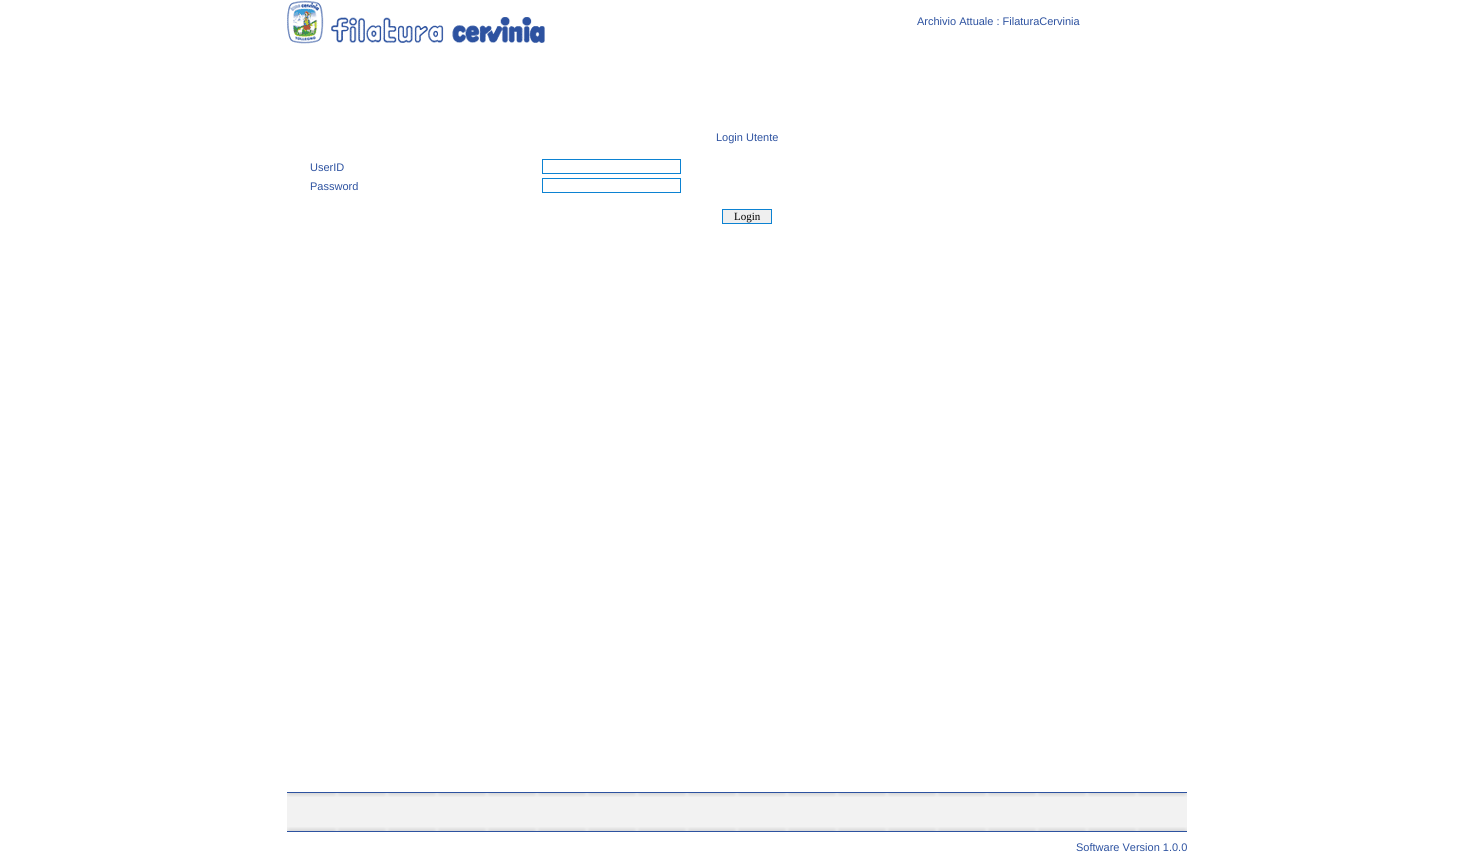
import math
import cairocffi as cairo

surface = cairo.ImageSurface(cairo.FORMAT_RGB24, 1474, 862)
ctx = cairo.Context(surface)
options = cairo.FontOptions()
options.set_hint_metrics(cairo.HINT_METRICS_OFF)
options.set_hint_style(cairo.HINT_STYLE_NONE)
ctx.set_font_options(options)
ctx.set_miter_limit(4)


def rgb(r, g, b):
    ctx.set_source_rgb(r / 255, g / 255, b / 255)


def face(family, size, italic, bold):
    ctx.select_font_face(family, cairo.FONT_SLANT_ITALIC if italic else cairo.FONT_SLANT_NORMAL, cairo.FONT_WEIGHT_BOLD if bold else cairo.FONT_WEIGHT_NORMAL)
    ctx.set_font_size(size)


def label(x, y, s):
    ctx.move_to(x, y)
    ctx.show_text(s)


def rect(x, y, w, h):
    ctx.rectangle(x, y, w, h)
    ctx.fill()


def image(path, x, y, w, h):
    ctx.save()
    ctx.set_source_surface(cairo.ImageSurface.create_from_png(path), x, y)
    ctx.rectangle(x, y, w, h)
    ctx.fill()
    ctx.restore()


rgb(255, 255, 255)
ctx.paint()
image('image0.png', 287, 0, 258, 44)
face('Liberation Sans', 11, 0, 0)
rgb(45, 82, 160)
label(917, 25, 'Archivio Attuale : FilaturaCervinia')
label(716, 141, 'Login Utente')
label(310, 171, 'UserID')
ctx.rectangle(542.5, 159.5, 138, 14)
rgb(12, 130, 210)
ctx.set_line_width(1)
ctx.stroke()
rgb(45, 82, 160)
label(310, 190, 'Password')
ctx.rectangle(542.5, 178.5, 138, 14)
rgb(12, 130, 210)
ctx.stroke()
rgb(239, 239, 239)
ctx.rectangle(722.5, 209.5, 49, 14)
ctx.fill_preserve()
rgb(12, 130, 210)
ctx.stroke()
face('Liberation Serif', 11, 0, 0)
rgb(0, 0, 0)
label(734, 220, 'Login')
rgb(242, 242, 242)
rect(287, 793, 900, 38)
image('image1.png', 287, 792, 900, 40)
face('Liberation Sans', 11, 0, 0)
rgb(45, 82, 160)
label(1076, 851, 'Software Version 1.0.0')
surface.write_to_png('render.png')
